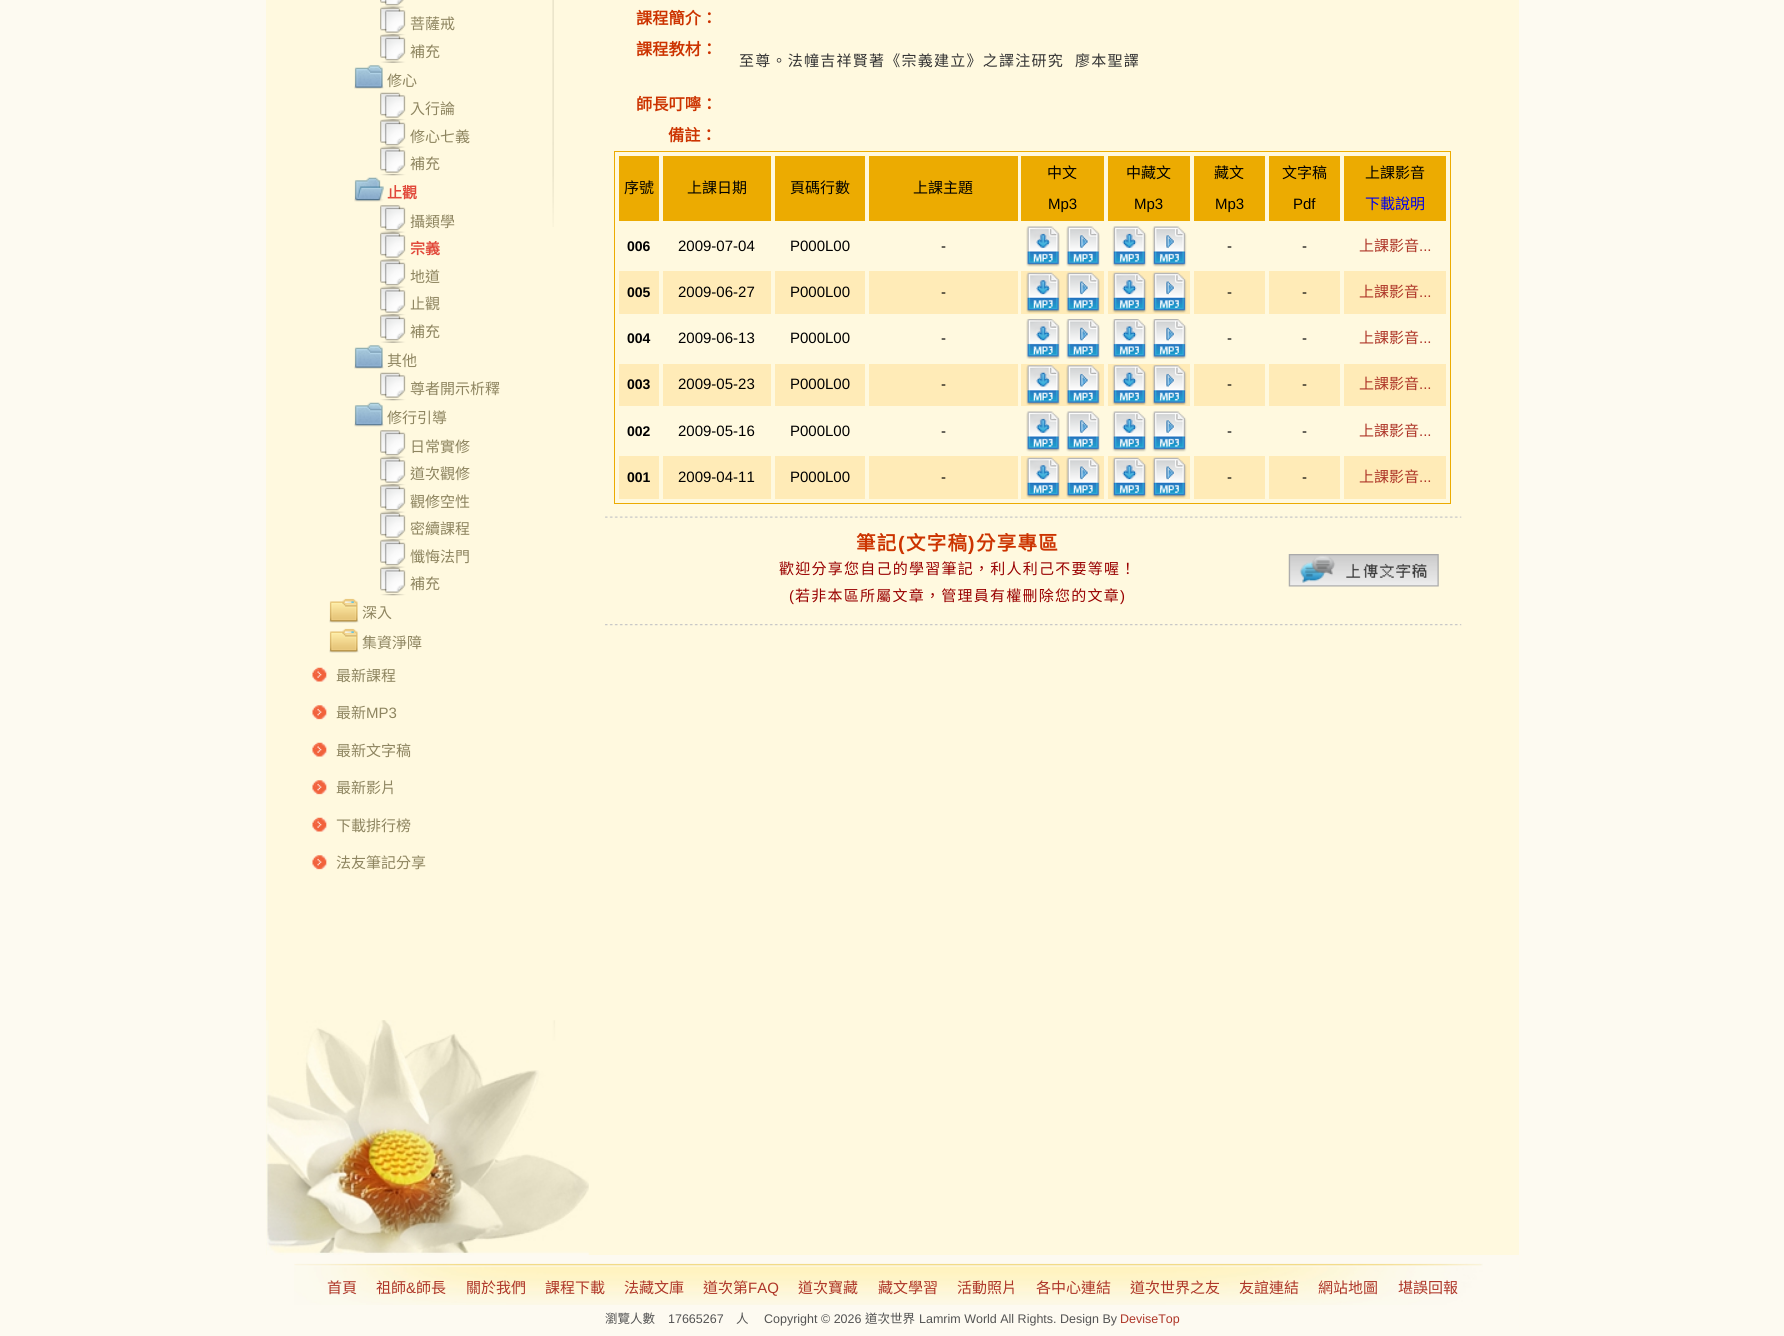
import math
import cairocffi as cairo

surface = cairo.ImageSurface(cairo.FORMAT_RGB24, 1784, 1336)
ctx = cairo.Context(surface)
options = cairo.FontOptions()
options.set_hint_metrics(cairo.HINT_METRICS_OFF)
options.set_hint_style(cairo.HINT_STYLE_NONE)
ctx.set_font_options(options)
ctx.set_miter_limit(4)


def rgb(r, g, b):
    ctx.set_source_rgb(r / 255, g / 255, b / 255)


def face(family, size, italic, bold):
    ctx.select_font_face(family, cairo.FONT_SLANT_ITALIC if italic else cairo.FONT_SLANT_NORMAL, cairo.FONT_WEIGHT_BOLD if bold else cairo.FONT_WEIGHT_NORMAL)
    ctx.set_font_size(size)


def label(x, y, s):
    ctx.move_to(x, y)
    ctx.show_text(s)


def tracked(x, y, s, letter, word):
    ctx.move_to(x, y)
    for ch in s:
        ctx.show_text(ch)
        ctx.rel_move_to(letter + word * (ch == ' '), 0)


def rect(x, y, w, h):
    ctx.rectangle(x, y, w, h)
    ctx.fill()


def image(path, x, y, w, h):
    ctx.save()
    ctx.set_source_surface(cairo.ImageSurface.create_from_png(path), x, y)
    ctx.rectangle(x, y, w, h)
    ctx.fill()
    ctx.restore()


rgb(253, 250, 241)
ctx.paint()
rgb(255, 249, 223)
rect(266, 0, 1253, 1255)
image('image0.png', 266, 1020, 323, 235)
image('image1.png', 380, 0, 24, 8)
image('image2.png', 380, 7, 26, 29)
face('Noto Sans CJK TC', 15, 0, 0)
rgb(142, 133, 96)
label(410, 29, '菩薩戒')
image('image3.png', 380, 35, 26, 28)
label(410, 57, '補充')
image('image4.png', 354, 65, 30, 24)
label(387, 86, '修心')
image('image5.png', 380, 92, 26, 29)
label(410, 114, '入行論')
image('image6.png', 380, 120, 26, 28)
label(410, 142, '修心七義')
image('image7.png', 380, 147, 26, 29)
label(410, 169, '補充')
image('image8.png', 354, 177, 30, 25)
face('Noto Sans CJK TC', 15, 0, 1)
rgb(225, 72, 58)
label(387, 198, '止觀')
image('image9.png', 380, 205, 26, 28)
face('Noto Sans CJK TC', 15, 0, 0)
rgb(142, 133, 96)
label(410, 227, '攝類學')
image('image7.png', 380, 232, 26, 29)
face('Noto Sans CJK TC', 15, 0, 1)
rgb(225, 72, 58)
label(410, 254, '宗義')
image('image3.png', 380, 260, 26, 28)
face('Noto Sans CJK TC', 15, 0, 0)
rgb(142, 133, 96)
label(410, 282, '地道')
image('image7.png', 380, 287, 26, 29)
label(410, 309, '止觀')
image('image3.png', 380, 315, 26, 28)
label(410, 337, '補充')
image('image4.png', 354, 345, 30, 24)
label(387, 366, '其他')
image('image5.png', 380, 372, 26, 29)
label(410, 394, '尊者開示析釋')
image('image10.png', 354, 402, 30, 25)
label(387, 423, '修行引導')
image('image9.png', 380, 430, 26, 28)
label(410, 452, '日常實修')
image('image7.png', 380, 457, 26, 29)
label(410, 479, '道次觀修')
image('image3.png', 380, 485, 26, 28)
label(410, 507, '觀修空性')
image('image11.png', 380, 512, 26, 29)
label(410, 534, '密續課程')
image('image3.png', 380, 540, 26, 28)
label(410, 562, '懺悔法門')
image('image7.png', 380, 567, 26, 29)
label(410, 589, '補充')
image('image12.png', 329, 598, 30, 25)
label(362, 618, '深入')
image('image12.png', 329, 628, 30, 25)
label(362, 648, '集資淨障')
image('image13.png', 312, 667, 15, 15)
label(336, 681, '最新課程')
image('image14.png', 312, 705, 15, 15)
label(336, 718, '最新')
face('Liberation Sans', 15, 0, 0)
label(366, 718, 'MP3')
image('image13.png', 312, 742, 15, 15)
face('Noto Sans CJK TC', 15, 0, 0)
label(336, 756, '最新文字稿')
image('image14.png', 312, 780, 15, 15)
label(336, 793, '最新影片')
image('image13.png', 312, 817, 15, 15)
label(336, 831, '下載排行榜')
image('image14.png', 312, 855, 15, 15)
label(336, 868, '法友筆記分享')
image('image15.png', 552, 0, 2, 227)
face('Noto Sans CJK TC', 16.25, 0, 1)
rgb(204, 51, 0)
label(636, 24, '課程簡介：')
label(636, 55, '課程教材：')
face('Noto Sans CJK TC', 15, 0, 0)
rgb(51, 51, 51)
tracked(739, 66, '至尊。法幢吉祥賢著《宗義建立》之譯注研究', 1.25, 0)
tracked(1075, 66, '廖本聖譯', 1.25, 0)
face('Noto Sans CJK TC', 16.25, 0, 1)
rgb(204, 51, 0)
label(636, 110, '師長叮嚀：')
label(668, 141, '備註：')
ctx.rectangle(614.5, 151.5, 836, 352)
rgb(236, 171, 1)
ctx.set_line_width(1)
ctx.stroke()
rect(619, 156, 40, 65)
face('Noto Sans CJK TC', 15, 0, 0)
rgb(0, 0, 0)
label(624, 193, '序號')
rgb(236, 171, 1)
rect(663, 156, 108, 65)
rgb(0, 0, 0)
label(687, 193, '上課日期')
rgb(236, 171, 1)
rect(775, 156, 90, 65)
rgb(0, 0, 0)
label(790, 193, '頁碼行數')
rgb(236, 171, 1)
rect(869, 156, 149, 65)
rgb(0, 0, 0)
label(913, 193, '上課主題')
rgb(236, 171, 1)
rect(1021, 156, 83, 65)
rgb(0, 0, 0)
label(1047, 178, '中文')
face('Liberation Sans', 15, 0, 0)
label(1048, 209, 'Mp3')
rgb(236, 171, 1)
rect(1108, 156, 82, 65)
face('Noto Sans CJK TC', 15, 0, 0)
rgb(0, 0, 0)
label(1126, 178, '中藏文')
face('Liberation Sans', 15, 0, 0)
label(1134, 209, 'Mp3')
rgb(236, 171, 1)
rect(1194, 156, 71, 65)
face('Noto Sans CJK TC', 15, 0, 0)
rgb(0, 0, 0)
label(1214, 178, '藏文')
face('Liberation Sans', 15, 0, 0)
label(1215, 209, 'Mp3')
rgb(236, 171, 1)
rect(1269, 156, 71, 65)
face('Noto Sans CJK TC', 15, 0, 0)
rgb(0, 0, 0)
label(1282, 178, '文字稿')
face('Liberation Sans', 15, 0, 0)
label(1293, 209, 'Pdf')
rgb(236, 171, 1)
rect(1344, 156, 102, 65)
face('Noto Sans CJK TC', 15, 0, 0)
rgb(0, 0, 0)
label(1365, 178, '上課影音')
rgb(0, 0, 238)
label(1365, 209, '下載說明')
face('Liberation Sans', 14, 0, 1)
rgb(0, 0, 0)
label(627, 251, '006')
face('Liberation Sans', 15, 0, 0)
label(678, 251, '2009-07-04')
label(790, 251, 'P000L00')
label(941, 251, '-')
image('image16.png', 1026, 226, 34, 41)
image('image17.png', 1066, 226, 34, 41)
image('image18.png', 1112, 226, 35, 41)
image('image19.png', 1152, 226, 35, 41)
label(1227, 251, '-')
label(1302, 251, '-')
face('Noto Sans CJK TC', 15, 0, 0)
rgb(174, 54, 40)
label(1359, 251, '上課影音')
face('Liberation Sans', 15, 0, 0)
label(1419, 251, '...')
rgb(255, 235, 183)
rect(619, 271, 40, 43)
face('Liberation Sans', 14, 0, 1)
rgb(0, 0, 0)
label(627, 297, '005')
rgb(255, 235, 183)
rect(663, 271, 108, 43)
face('Liberation Sans', 15, 0, 0)
rgb(0, 0, 0)
label(678, 297, '2009-06-27')
rgb(255, 235, 183)
rect(775, 271, 90, 43)
rgb(0, 0, 0)
label(790, 297, 'P000L00')
rgb(255, 235, 183)
rect(869, 271, 149, 43)
rgb(0, 0, 0)
label(941, 297, '-')
rgb(255, 235, 183)
rect(1021, 271, 83, 43)
image('image20.png', 1026, 272, 34, 41)
image('image21.png', 1066, 272, 34, 41)
rect(1108, 271, 82, 43)
image('image22.png', 1112, 272, 35, 41)
image('image23.png', 1152, 272, 35, 41)
rect(1194, 271, 71, 43)
rgb(0, 0, 0)
label(1227, 297, '-')
rgb(255, 235, 183)
rect(1269, 271, 71, 43)
rgb(0, 0, 0)
label(1302, 297, '-')
rgb(255, 235, 183)
rect(1344, 271, 102, 43)
face('Noto Sans CJK TC', 15, 0, 0)
rgb(174, 54, 40)
label(1359, 297, '上課影音')
face('Liberation Sans', 15, 0, 0)
label(1419, 297, '...')
face('Liberation Sans', 14, 0, 1)
rgb(0, 0, 0)
label(627, 343, '004')
face('Liberation Sans', 15, 0, 0)
label(678, 343, '2009-06-13')
label(790, 343, 'P000L00')
label(941, 343, '-')
image('image24.png', 1026, 319, 34, 40)
image('image25.png', 1066, 319, 34, 40)
image('image26.png', 1112, 319, 35, 40)
image('image27.png', 1152, 319, 35, 40)
label(1227, 343, '-')
label(1302, 343, '-')
face('Noto Sans CJK TC', 15, 0, 0)
rgb(174, 54, 40)
label(1359, 343, '上課影音')
face('Liberation Sans', 15, 0, 0)
label(1419, 343, '...')
rgb(255, 235, 183)
rect(619, 364, 40, 42)
face('Liberation Sans', 14, 0, 1)
rgb(0, 0, 0)
label(627, 389, '003')
rgb(255, 235, 183)
rect(663, 364, 108, 42)
face('Liberation Sans', 15, 0, 0)
rgb(0, 0, 0)
label(678, 389, '2009-05-23')
rgb(255, 235, 183)
rect(775, 364, 90, 42)
rgb(0, 0, 0)
label(790, 389, 'P000L00')
rgb(255, 235, 183)
rect(869, 364, 149, 42)
rgb(0, 0, 0)
label(941, 389, '-')
rgb(255, 235, 183)
rect(1021, 364, 83, 42)
image('image28.png', 1026, 365, 34, 40)
image('image29.png', 1066, 365, 34, 40)
rect(1108, 364, 82, 42)
image('image30.png', 1112, 365, 35, 40)
image('image31.png', 1152, 365, 35, 40)
rect(1194, 364, 71, 42)
rgb(0, 0, 0)
label(1227, 389, '-')
rgb(255, 235, 183)
rect(1269, 364, 71, 42)
rgb(0, 0, 0)
label(1302, 389, '-')
rgb(255, 235, 183)
rect(1344, 364, 102, 42)
face('Noto Sans CJK TC', 15, 0, 0)
rgb(174, 54, 40)
label(1359, 389, '上課影音')
face('Liberation Sans', 15, 0, 0)
label(1419, 389, '...')
face('Liberation Sans', 14, 0, 1)
rgb(0, 0, 0)
label(627, 436, '002')
face('Liberation Sans', 15, 0, 0)
label(678, 436, '2009-05-16')
label(790, 436, 'P000L00')
label(941, 436, '-')
image('image16.png', 1026, 411, 34, 41)
image('image17.png', 1066, 411, 34, 41)
image('image18.png', 1112, 411, 35, 41)
image('image19.png', 1152, 411, 35, 41)
label(1227, 436, '-')
label(1302, 436, '-')
face('Noto Sans CJK TC', 15, 0, 0)
rgb(174, 54, 40)
label(1359, 436, '上課影音')
face('Liberation Sans', 15, 0, 0)
label(1419, 436, '...')
rgb(255, 235, 183)
rect(619, 456, 40, 43)
face('Liberation Sans', 14, 0, 1)
rgb(0, 0, 0)
label(627, 482, '001')
rgb(255, 235, 183)
rect(663, 456, 108, 43)
face('Liberation Sans', 15, 0, 0)
rgb(0, 0, 0)
label(678, 482, '2009-04-11')
rgb(255, 235, 183)
rect(775, 456, 90, 43)
rgb(0, 0, 0)
label(790, 482, 'P000L00')
rgb(255, 235, 183)
rect(869, 456, 149, 43)
rgb(0, 0, 0)
label(941, 482, '-')
rgb(255, 235, 183)
rect(1021, 456, 83, 43)
image('image20.png', 1026, 457, 34, 41)
image('image21.png', 1066, 457, 34, 41)
rect(1108, 456, 82, 43)
image('image22.png', 1112, 457, 35, 41)
image('image23.png', 1152, 457, 35, 41)
rect(1194, 456, 71, 43)
rgb(0, 0, 0)
label(1227, 482, '-')
rgb(255, 235, 183)
rect(1269, 456, 71, 43)
rgb(0, 0, 0)
label(1302, 482, '-')
rgb(255, 235, 183)
rect(1344, 456, 102, 43)
face('Noto Sans CJK TC', 15, 0, 0)
rgb(174, 54, 40)
label(1359, 482, '上課影音')
face('Liberation Sans', 15, 0, 0)
label(1419, 482, '...')
image('image32.png', 605, 516, 857, 2)
face('Noto Sans CJK TC', 19.5, 0, 1)
rgb(204, 51, 0)
tracked(856, 550, '筆記', 1.25, 0)
face('Liberation Sans', 19.5, 0, 1)
tracked(898, 550, '(', 1.25, 0)
face('Noto Sans CJK TC', 19.5, 0, 1)
tracked(906, 550, '文字稿', 1.25, 0)
face('Liberation Sans', 19.5, 0, 1)
tracked(968, 550, ')', 1.25, 0)
face('Noto Sans CJK TC', 19.5, 0, 1)
tracked(976, 550, '分享專區', 1.25, 0)
face('Noto Sans CJK TC', 15, 0, 0)
rgb(153, 0, 0)
tracked(779, 574, '歡迎分享您自己的學習筆記，利人利己不要等喔！', 1.25, 0)
face('Liberation Sans', 15, 0, 0)
tracked(789, 601, '(', 1.25, 0)
face('Noto Sans CJK TC', 15, 0, 0)
tracked(795, 601, '若非本區所屬文章，管理員有權刪除您的文章', 1.25, 0)
face('Liberation Sans', 15, 0, 0)
tracked(1120, 601, ')', 1.25, 0)
image('image33.png', 1288, 554, 151, 33)
image('image34.png', 605, 624, 857, 2)
image('image35.png', 294, 1263, 1189, 42)
face('Noto Sans CJK TC', 15, 0, 0)
rgb(174, 54, 40)
label(327, 1293, '首頁')
label(376, 1293, '祖師')
face('Liberation Sans', 15, 0, 0)
label(406, 1293, '&')
face('Noto Sans CJK TC', 15, 0, 0)
label(416, 1293, '師長')
label(466, 1293, '關於我們')
label(545, 1293, '課程下載')
label(624, 1293, '法藏文庫')
label(703, 1293, '道次第')
face('Liberation Sans', 15, 0, 0)
label(748, 1293, 'FAQ')
face('Noto Sans CJK TC', 15, 0, 0)
label(798, 1293, '道次寶藏')
label(878, 1293, '藏文學習')
label(957, 1293, '活動照片')
label(1036, 1293, '各中心連結')
label(1130, 1293, '道次世界之友')
label(1239, 1293, '友誼連結')
label(1318, 1293, '網站地圖')
label(1398, 1293, '堪誤回報')
face('Noto Sans CJK TC', 12.5, 0, 0)
rgb(83, 83, 83)
label(605, 1323, '瀏覽人數')
face('Liberation Sans', 12.5, 0, 0)
label(668, 1323, '17665267')
face('Noto Sans CJK TC', 12.5, 0, 0)
label(736, 1323, '人')
face('Liberation Sans', 12.5, 0, 0)
label(764, 1323, 'Copyright © 2026')
face('Noto Sans CJK TC', 12.5, 0, 0)
label(865, 1323, '道次世界')
face('Liberation Sans', 12.5, 0, 0)
label(919, 1323, 'Lamrim World All Rights. Design By')
rgb(174, 54, 40)
label(1120, 1323, 'DeviseTop')
surface.write_to_png('render.png')
